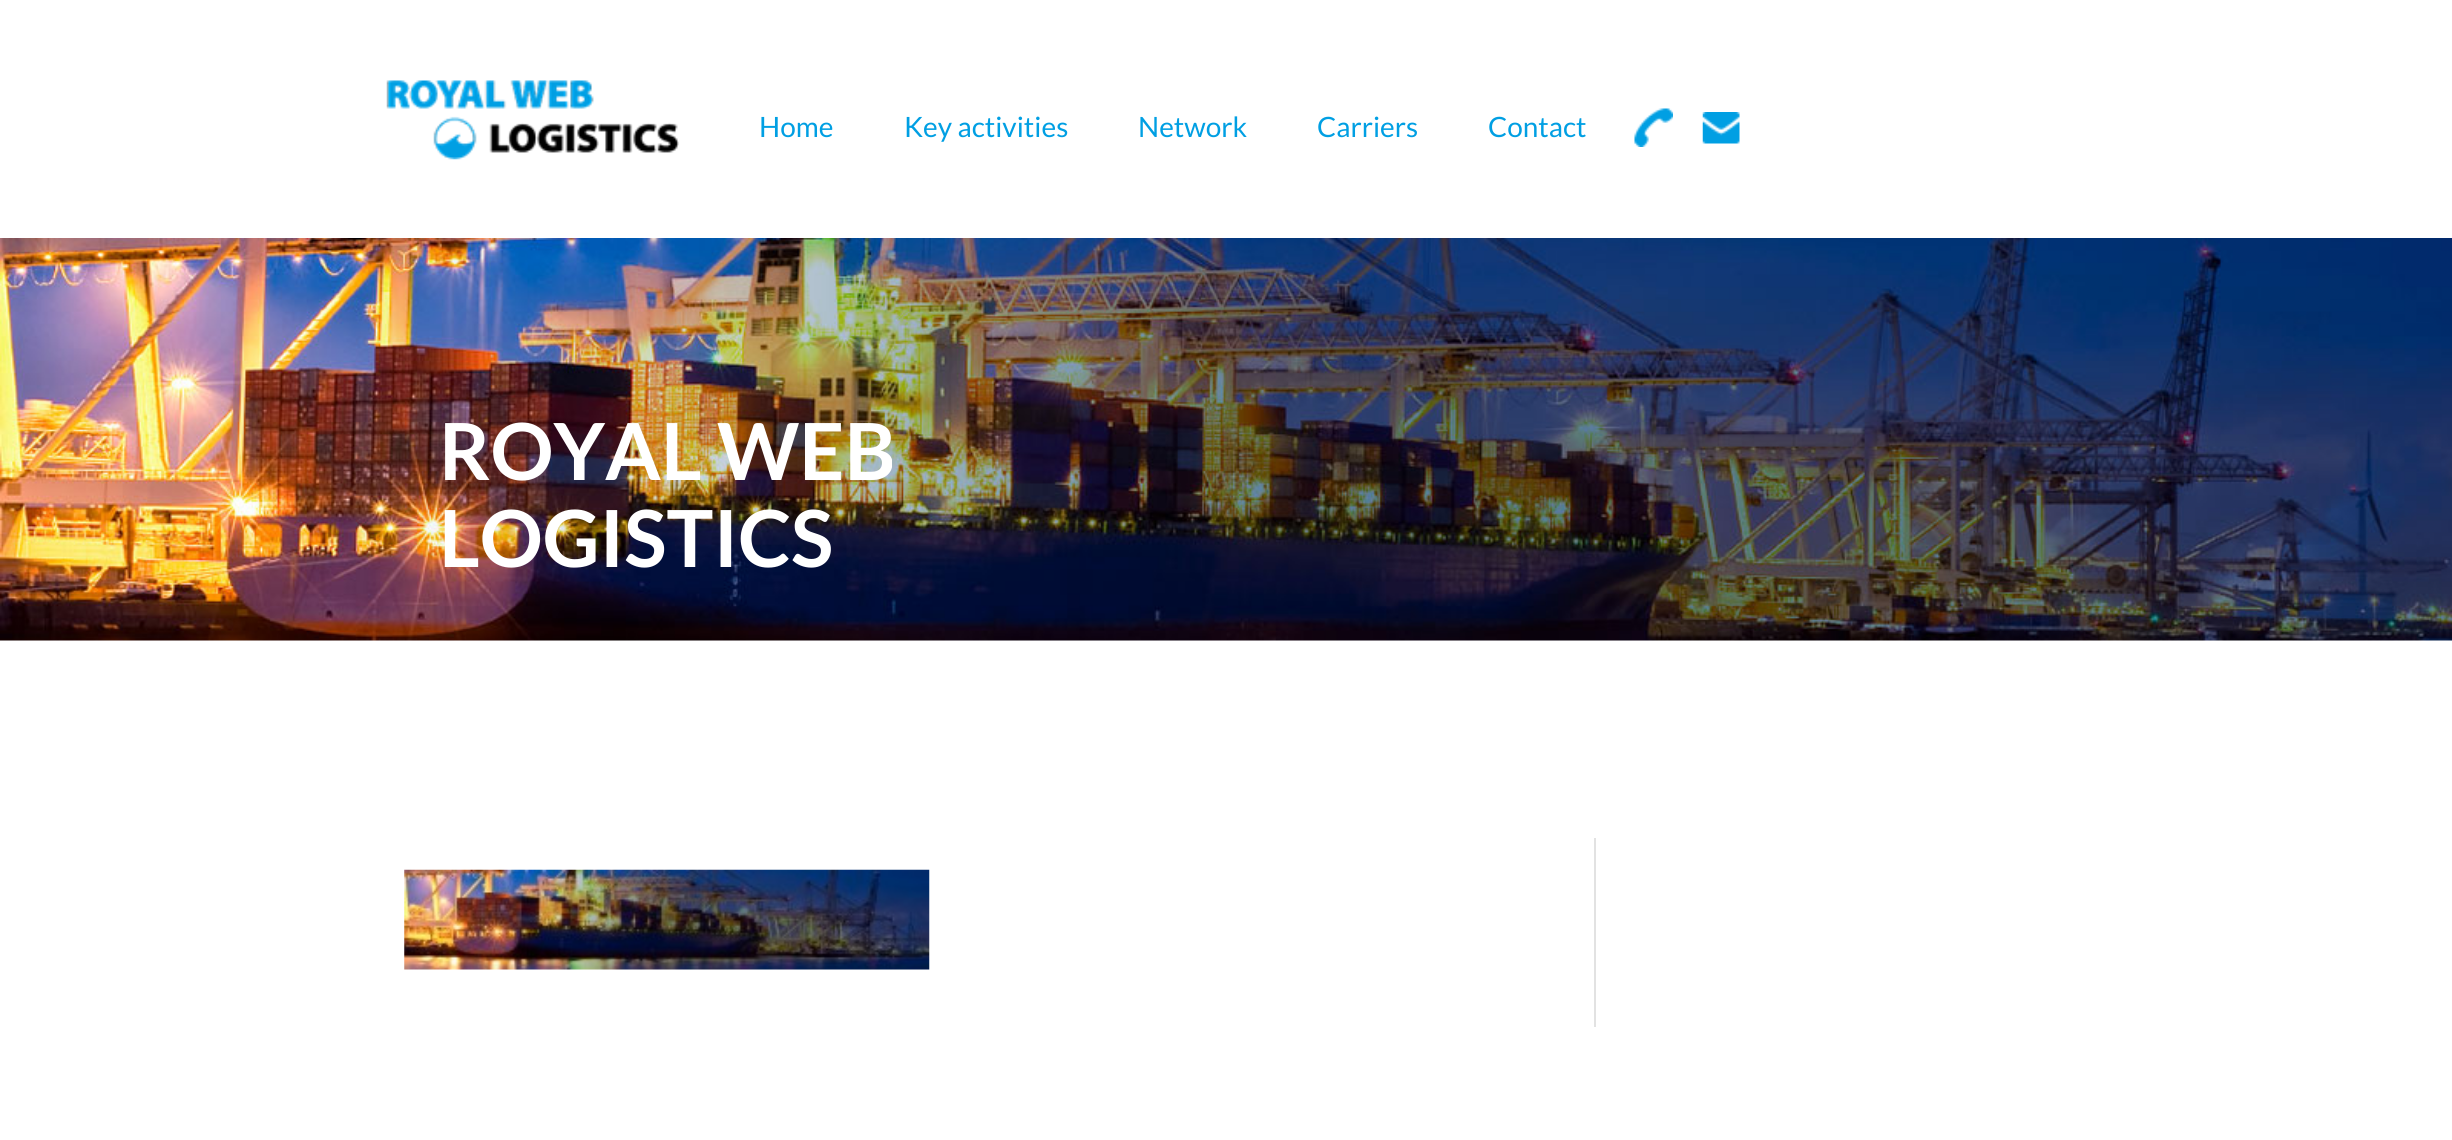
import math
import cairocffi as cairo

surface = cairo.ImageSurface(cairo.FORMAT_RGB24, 2452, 1140)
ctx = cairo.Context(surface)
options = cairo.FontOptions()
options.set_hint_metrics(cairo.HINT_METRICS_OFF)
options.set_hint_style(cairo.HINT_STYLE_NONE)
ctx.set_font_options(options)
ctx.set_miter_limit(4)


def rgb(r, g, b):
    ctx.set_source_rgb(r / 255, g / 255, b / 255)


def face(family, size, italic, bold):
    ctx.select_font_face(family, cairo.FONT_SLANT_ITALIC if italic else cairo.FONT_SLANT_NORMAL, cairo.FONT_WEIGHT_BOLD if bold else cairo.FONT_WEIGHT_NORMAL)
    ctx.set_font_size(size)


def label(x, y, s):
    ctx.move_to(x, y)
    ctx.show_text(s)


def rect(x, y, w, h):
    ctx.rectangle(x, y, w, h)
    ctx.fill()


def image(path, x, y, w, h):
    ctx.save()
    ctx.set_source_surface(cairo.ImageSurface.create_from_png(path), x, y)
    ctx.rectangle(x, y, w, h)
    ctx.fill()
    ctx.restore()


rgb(255, 255, 255)
ctx.paint()
image('image0.png', 386, 80, 293, 80)
face('Lato', 28, 0, 0)
rgb(0, 159, 227)
label(759, 137, 'Home')
label(904, 137, 'Key activities')
label(1138, 137, 'Network')
label(1317, 137, 'Carriers')
label(1488, 137, 'Contact')
image('image1.png', 1634, 108, 39, 39)
image('image2.png', 1702, 112, 38, 32)
image('image3.png', 0, 238, 2452, 403)
face('Lato', 78.75, 0, 1)
rgb(255, 255, 255)
label(439, 480, 'ROYAL WEB')
label(439, 567, 'LOGISTICS')
rgb(226, 226, 226)
rect(1594, 838, 2, 189)
image('image4.png', 404, 869, 526, 101)
surface.write_to_png('render.png')
